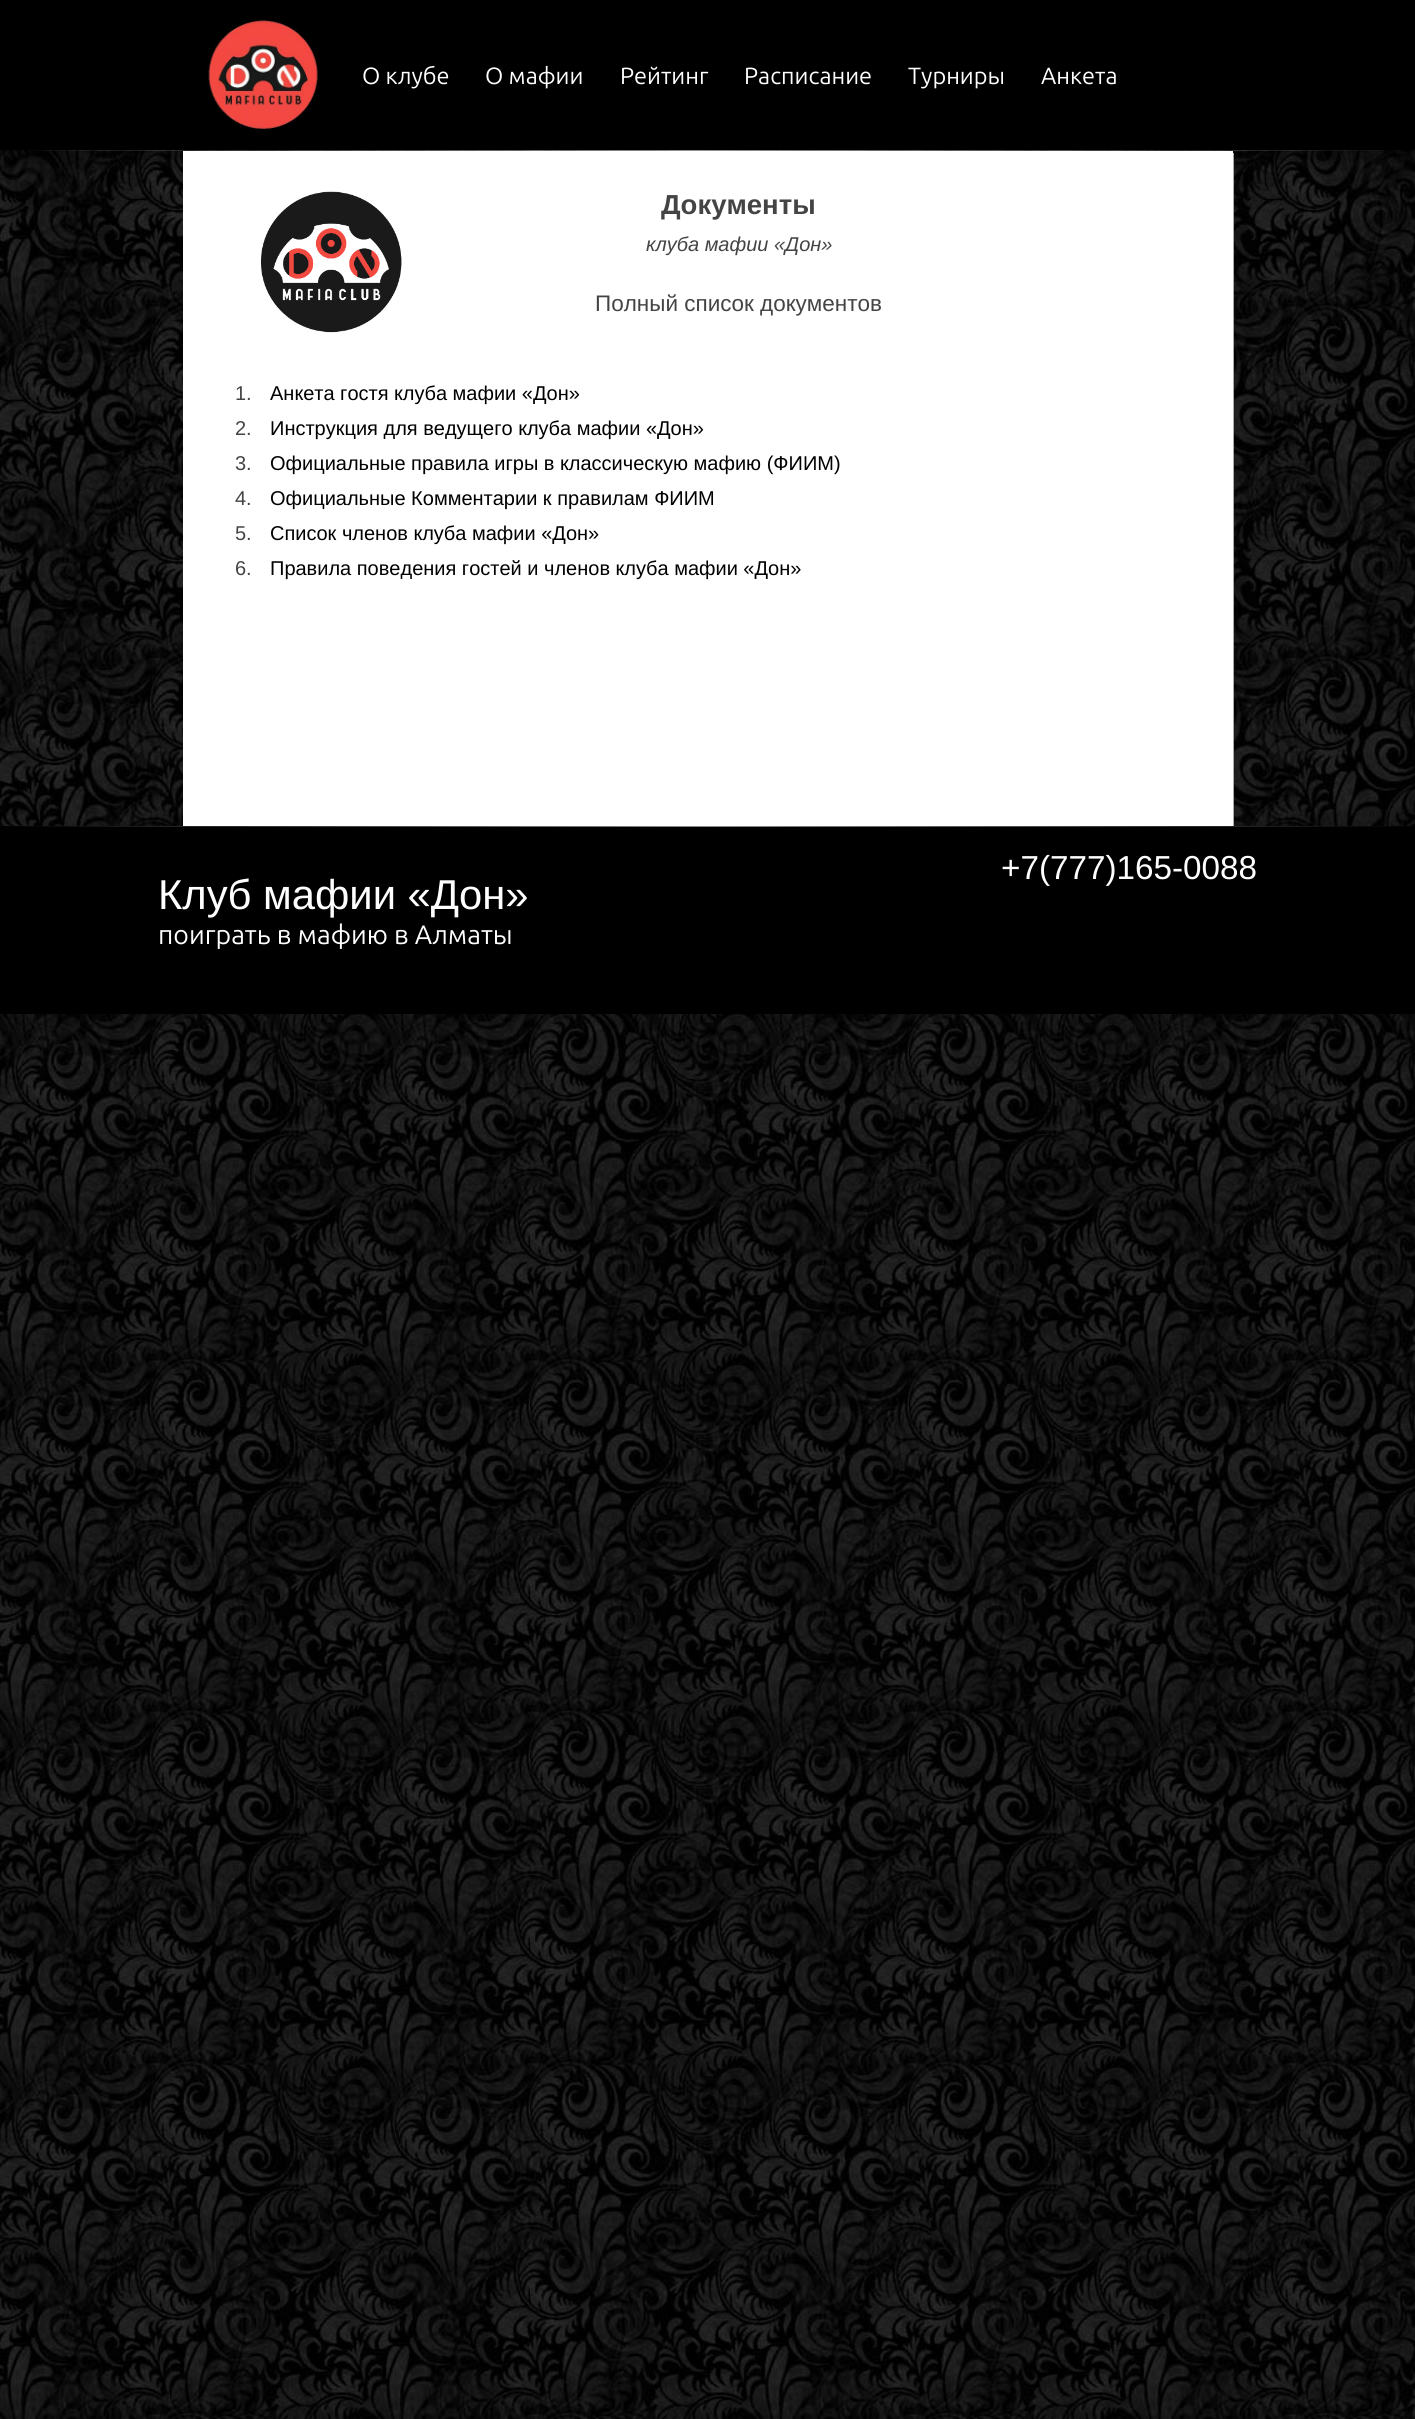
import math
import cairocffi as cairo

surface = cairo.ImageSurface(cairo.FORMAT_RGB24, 1415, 2419)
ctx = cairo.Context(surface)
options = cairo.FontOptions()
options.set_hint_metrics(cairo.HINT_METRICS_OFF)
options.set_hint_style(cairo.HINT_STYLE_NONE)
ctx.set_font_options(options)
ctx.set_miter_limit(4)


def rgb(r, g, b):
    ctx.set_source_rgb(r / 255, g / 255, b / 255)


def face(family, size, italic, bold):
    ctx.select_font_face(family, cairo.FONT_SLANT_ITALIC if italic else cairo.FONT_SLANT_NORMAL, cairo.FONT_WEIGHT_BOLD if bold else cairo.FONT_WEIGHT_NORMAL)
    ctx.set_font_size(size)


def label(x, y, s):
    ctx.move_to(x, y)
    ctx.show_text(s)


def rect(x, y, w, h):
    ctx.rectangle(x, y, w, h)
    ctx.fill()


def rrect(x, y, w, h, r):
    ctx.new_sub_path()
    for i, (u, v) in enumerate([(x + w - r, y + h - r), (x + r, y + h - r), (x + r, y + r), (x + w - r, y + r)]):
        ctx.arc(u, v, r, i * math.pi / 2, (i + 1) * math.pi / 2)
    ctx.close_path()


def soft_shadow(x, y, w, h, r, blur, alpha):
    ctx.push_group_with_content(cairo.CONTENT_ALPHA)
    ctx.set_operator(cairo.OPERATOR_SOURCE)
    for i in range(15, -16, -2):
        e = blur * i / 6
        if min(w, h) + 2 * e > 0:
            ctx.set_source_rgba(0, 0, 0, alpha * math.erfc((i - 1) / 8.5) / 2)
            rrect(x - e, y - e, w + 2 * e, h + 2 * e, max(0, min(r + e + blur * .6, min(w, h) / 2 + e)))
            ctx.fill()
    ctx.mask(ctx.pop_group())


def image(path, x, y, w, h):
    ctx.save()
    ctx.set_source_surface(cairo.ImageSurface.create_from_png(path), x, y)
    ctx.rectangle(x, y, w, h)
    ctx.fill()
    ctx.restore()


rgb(255, 255, 255)
ctx.paint()
image('image0.png', 0, 150, 1415, 2269)
rgb(0, 0, 0)
soft_shadow(0, 0, 1415, 150, 0, 12.5, 0.75)
rgb(0, 0, 0)
rect(0, 0, 1415, 150)
image('image1.png', 204, 20, 114, 110)
face('Ubuntu', 23.5, 0, 0)
rgb(255, 255, 255)
label(362, 84, 'О клубе')
label(485, 84, 'О мафии')
label(620, 84, 'Рейтинг')
label(744, 84, 'Расписание')
label(908, 84, 'Турниры')
label(1041, 84, 'Анкета')
gradient = cairo.LinearGradient(0, 151, 1415, 151)
gradient.add_color_stop_rgba(0, 1, 1, 1, 0)
gradient.add_color_stop_rgba(0.5, 1, 1, 1, 0.55)
gradient.add_color_stop_rgba(1, 1, 1, 1, 0)
ctx.set_source(gradient)
rect(28, 150, 1359, 1)
rgb(170, 170, 170)
ctx.new_path()
ctx.move_to(184, 826)
ctx.line_to(184, 828)
ctx.line_to(1234, 828)
ctx.line_to(1234, 153)
ctx.line_to(1232, 153)
ctx.line_to(1232, 826)
ctx.close_path()
ctx.fill()
rgb(255, 255, 255)
rect(183, 151, 1050, 675)
image('image2.png', 261, 191, 141, 142)
face('Liberation Sans', 27.5, 0, 1)
rgb(68, 68, 68)
label(661, 214, 'Документы')
face('Liberation Sans', 20, 1, 0)
label(646, 251, 'клуба мафии «Дон»')
face('Liberation Sans', 22.5, 0, 0)
label(595, 311, 'Полный список документов')
face('Liberation Sans', 20, 0, 0)
label(235, 400, '1.')
rgb(0, 0, 0)
label(270, 400, 'Анкета гостя клуба мафии «Дон»')
rgb(68, 68, 68)
label(235, 435, '2.')
rgb(0, 0, 0)
label(270, 435, 'Инструкция для ведущего клуба мафии «Дон»')
rgb(68, 68, 68)
label(235, 470, '3.')
rgb(0, 0, 0)
label(270, 470, 'Официальные правила игры в классическую мафию (ФИИМ)')
rgb(68, 68, 68)
label(235, 505, '4.')
rgb(0, 0, 0)
label(270, 505, 'Официальные Комментарии к правилам ФИИМ')
rgb(68, 68, 68)
label(235, 540, '5.')
rgb(0, 0, 0)
label(270, 540, 'Список членов клуба мафии «Дон»')
rgb(68, 68, 68)
label(235, 575, '6.')
rgb(0, 0, 0)
label(270, 575, 'Правила поведения гостей и членов клуба мафии «Дон»')
rect(0, 827, 1415, 187)
gradient = cairo.LinearGradient(0, 827, 1415, 827)
gradient.add_color_stop_rgba(0, 0, 0, 0, 1)
gradient.add_color_stop_rgba(0.5, 0.549, 0.549, 0.549, 1)
gradient.add_color_stop_rgba(1, 0, 0, 0, 1)
ctx.set_source(gradient)
rect(0, 826, 1415, 1)
face('Liberation Sans', 33.25, 0, 0)
rgb(255, 255, 255)
label(1001, 879, '+7(777)165-0088')
face('Liberation Sans', 41.75, 0, 0)
label(158, 909, 'Клуб мафии «Дон»')
face('Ubuntu', 26.7, 0, 0)
label(158, 944, 'поиграть в мафию в Алматы')
surface.write_to_png('render.png')
